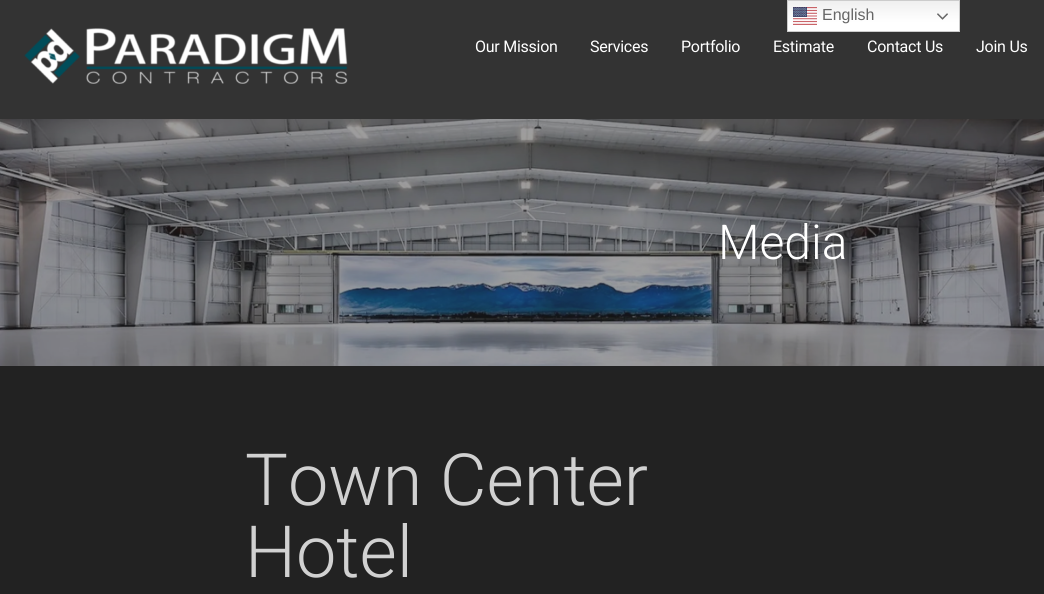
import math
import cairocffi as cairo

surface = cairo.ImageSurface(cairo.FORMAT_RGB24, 1044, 594)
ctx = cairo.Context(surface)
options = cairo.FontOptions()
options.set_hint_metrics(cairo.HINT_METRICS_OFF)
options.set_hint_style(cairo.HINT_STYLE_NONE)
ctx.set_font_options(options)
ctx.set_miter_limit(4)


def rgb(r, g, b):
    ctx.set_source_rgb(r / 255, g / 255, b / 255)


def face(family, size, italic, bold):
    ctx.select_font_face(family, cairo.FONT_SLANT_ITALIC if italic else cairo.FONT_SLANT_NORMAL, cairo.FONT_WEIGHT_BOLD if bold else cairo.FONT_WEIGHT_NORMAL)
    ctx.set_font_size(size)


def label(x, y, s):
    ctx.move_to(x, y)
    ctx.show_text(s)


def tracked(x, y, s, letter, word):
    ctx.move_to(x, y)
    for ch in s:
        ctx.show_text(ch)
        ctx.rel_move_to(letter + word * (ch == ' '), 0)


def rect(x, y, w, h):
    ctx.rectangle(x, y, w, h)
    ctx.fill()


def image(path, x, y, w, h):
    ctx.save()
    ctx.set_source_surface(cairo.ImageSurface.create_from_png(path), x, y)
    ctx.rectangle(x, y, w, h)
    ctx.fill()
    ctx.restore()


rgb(34, 34, 34)
ctx.paint()
rgb(51, 51, 51)
rect(0, 0, 1044, 119)
gradient = cairo.LinearGradient(874, 0, 874, 32)
gradient.add_color_stop_rgba(0, 0.937, 0.937, 0.937, 1)
gradient.add_color_stop_rgba(0.7, 1, 1, 1, 1)
ctx.set_source(gradient)
rect(788, 1, 171, 30)
ctx.rectangle(787.5, 0.5, 172, 31)
rgb(204, 204, 204)
ctx.set_line_width(1)
ctx.stroke()
image('image0.png', 793, 7, 24, 18)
face('Liberation Sans', 16, 0, 0)
rgb(102, 102, 102)
label(822, 20, 'English')
image('image1.png', 937, 13, 11, 7)
image('image2.png', 24, 28, 324, 56)
face('Roboto', 16, 0, 0)
rgb(255, 255, 255)
tracked(475, 52, 'Our Mission', -0.25, 0)
tracked(590, 52, 'Services', -0.25, 0)
tracked(681, 52, 'Portfolio', -0.25, 0)
tracked(773, 52, 'Estimate', -0.25, 0)
tracked(867, 52, 'Contact Us', -0.25, 0)
tracked(976, 52, 'Join Us', -0.25, 0)
image('image3.png', 0, 119, 1044, 247)
face('Roboto Light', 48, 0, 0)
label(718, 259, 'Media')
face('Roboto Light', 72, 0, 0)
rgb(209, 209, 209)
label(245, 505, 'Town Center')
label(245, 577, 'Hotel')
surface.write_to_png('render.png')
